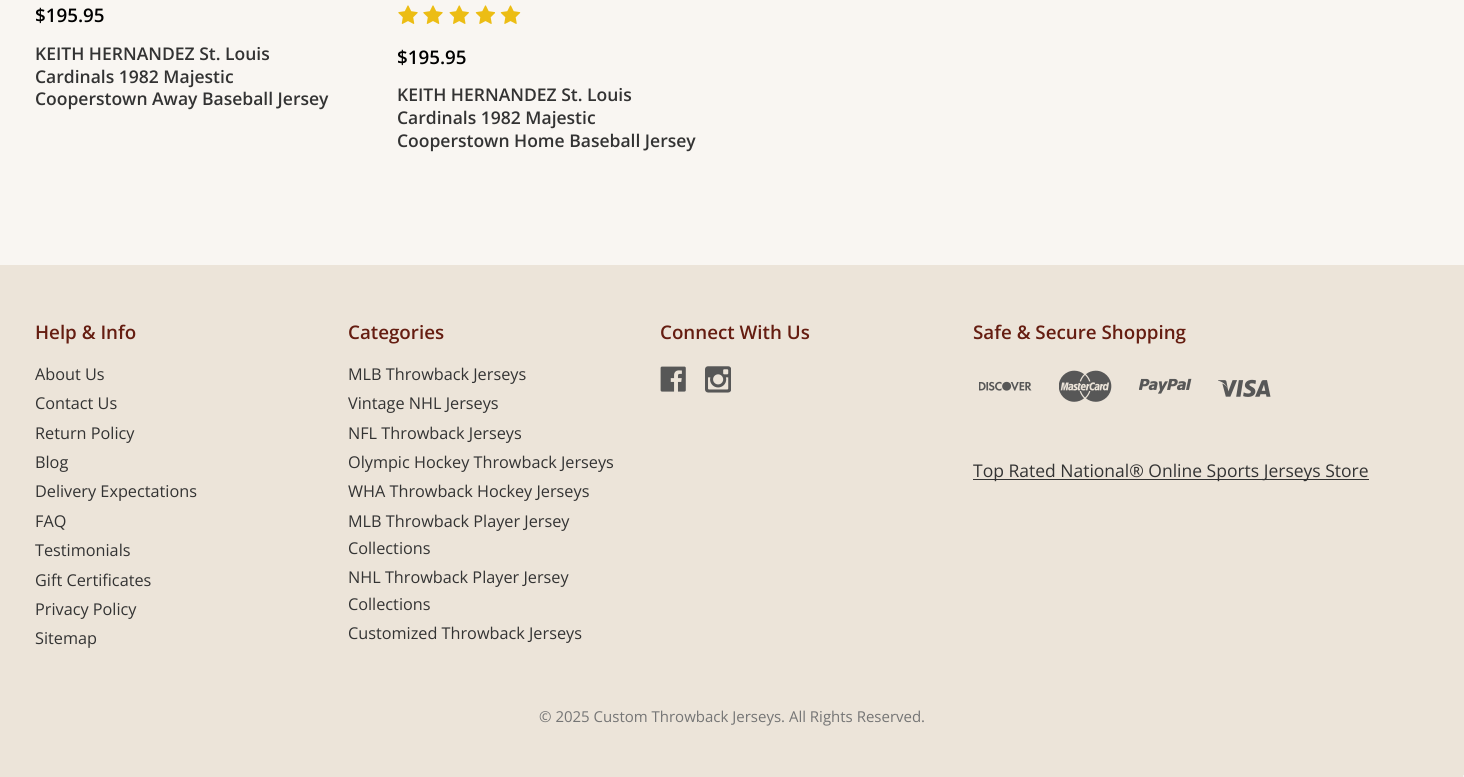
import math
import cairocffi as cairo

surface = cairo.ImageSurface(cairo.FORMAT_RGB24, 1464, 777)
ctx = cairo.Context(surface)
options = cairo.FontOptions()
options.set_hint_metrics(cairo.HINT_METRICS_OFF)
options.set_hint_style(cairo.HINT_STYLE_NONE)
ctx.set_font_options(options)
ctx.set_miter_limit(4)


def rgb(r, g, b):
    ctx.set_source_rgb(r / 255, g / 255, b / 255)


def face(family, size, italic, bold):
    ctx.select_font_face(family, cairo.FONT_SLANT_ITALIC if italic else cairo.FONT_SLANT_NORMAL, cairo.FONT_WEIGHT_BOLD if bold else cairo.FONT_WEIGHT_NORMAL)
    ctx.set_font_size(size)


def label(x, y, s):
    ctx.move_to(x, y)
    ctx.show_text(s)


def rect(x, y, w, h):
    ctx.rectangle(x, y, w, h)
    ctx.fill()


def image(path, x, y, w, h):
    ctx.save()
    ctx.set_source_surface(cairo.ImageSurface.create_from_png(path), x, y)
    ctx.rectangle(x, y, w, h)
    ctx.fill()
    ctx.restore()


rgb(249, 246, 242)
ctx.paint()
face('Open Sans SemiBold', 18.75, 0, 0)
rgb(0, 0, 0)
label(35, 22, '$195.95')
face('Open Sans SemiBold', 17.5, 0, 0)
rgb(51, 51, 51)
label(35, 60, 'KEITH HERNANDEZ St. Louis')
label(35, 83, 'Cardinals 1982 Majestic')
label(35, 105, 'Cooperstown Away Baseball Jersey')
image('image0.png', 398, 5, 20, 19)
image('image0.png', 423, 5, 20, 19)
image('image1.png', 449, 5, 20, 19)
image('image2.png', 475, 5, 20, 19)
image('image3.png', 500, 5, 21, 19)
face('Open Sans SemiBold', 18.75, 0, 0)
rgb(0, 0, 0)
label(397, 64, '$195.95')
face('Open Sans SemiBold', 17.5, 0, 0)
rgb(51, 51, 51)
label(397, 101, 'KEITH HERNANDEZ St. Louis')
label(397, 124, 'Cardinals 1982 Majestic')
label(397, 147, 'Cooperstown Home Baseball Jersey')
rgb(236, 228, 217)
rect(0, 265, 1464, 512)
face('Open Sans SemiBold', 18.75, 0, 0)
rgb(101, 29, 17)
label(35, 339, 'Help & Info')
face('Open Sans', 16.25, 0, 0)
rgb(51, 51, 51)
label(35, 380, 'About Us')
label(35, 409, 'Contact Us')
label(35, 439, 'Return Policy')
label(35, 468, 'Blog')
label(35, 497, 'Delivery Expectations')
label(35, 527, 'FAQ')
label(35, 556, 'Testimonials')
label(35, 586, 'Gift Certificates')
label(35, 615, 'Privacy Policy')
label(35, 644, 'Sitemap')
face('Open Sans SemiBold', 18.75, 0, 0)
rgb(101, 29, 17)
label(348, 339, 'Categories')
face('Open Sans', 16.25, 0, 0)
rgb(51, 51, 51)
label(348, 380, 'MLB Throwback Jerseys')
label(348, 409, 'Vintage NHL Jerseys')
label(348, 439, 'NFL Throwback Jerseys')
label(348, 468, 'Olympic Hockey Throwback Jerseys')
label(348, 497, 'WHA Throwback Hockey Jerseys')
label(348, 527, 'MLB Throwback Player Jersey')
label(348, 554, 'Collections')
label(348, 583, 'NHL Throwback Player Jersey')
label(348, 610, 'Collections')
label(348, 639, 'Customized Throwback Jerseys')
face('Open Sans SemiBold', 18.75, 0, 0)
rgb(101, 29, 17)
label(660, 339, 'Connect With Us')
image('image4.png', 660, 366, 26, 26)
image('image5.png', 705, 366, 26, 27)
label(973, 339, 'Safe & Secure Shopping')
image('image6.png', 979, 381, 53, 10)
image('image7.png', 1059, 370, 53, 32)
image('image8.png', 1139, 378, 53, 16)
image('image9.png', 1218, 379, 53, 18)
rgb(51, 51, 51)
rect(973, 479, 396, 1)
face('Open Sans', 17.5, 0, 0)
label(973, 477, 'Top Rated National® Online Sports Jerseys Store')
face('Open Sans', 15, 0, 0)
rgb(117, 117, 117)
label(539, 722, '© 2025 Custom Throwback Jerseys. All Rights Reserved.')
rgb(245, 245, 245)
rect(1463, 775, 1, 2)
surface.write_to_png('render.png')
